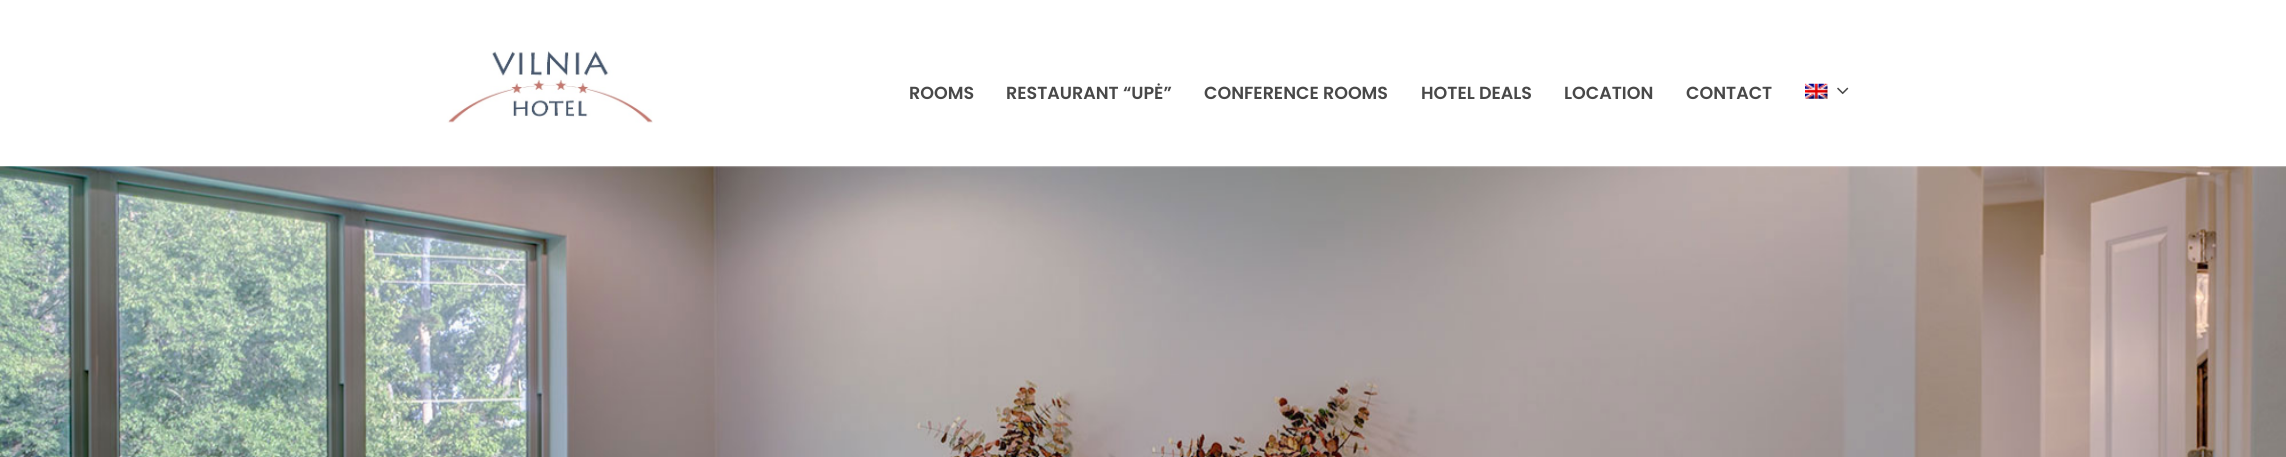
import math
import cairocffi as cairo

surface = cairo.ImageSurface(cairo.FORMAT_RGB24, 2286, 457)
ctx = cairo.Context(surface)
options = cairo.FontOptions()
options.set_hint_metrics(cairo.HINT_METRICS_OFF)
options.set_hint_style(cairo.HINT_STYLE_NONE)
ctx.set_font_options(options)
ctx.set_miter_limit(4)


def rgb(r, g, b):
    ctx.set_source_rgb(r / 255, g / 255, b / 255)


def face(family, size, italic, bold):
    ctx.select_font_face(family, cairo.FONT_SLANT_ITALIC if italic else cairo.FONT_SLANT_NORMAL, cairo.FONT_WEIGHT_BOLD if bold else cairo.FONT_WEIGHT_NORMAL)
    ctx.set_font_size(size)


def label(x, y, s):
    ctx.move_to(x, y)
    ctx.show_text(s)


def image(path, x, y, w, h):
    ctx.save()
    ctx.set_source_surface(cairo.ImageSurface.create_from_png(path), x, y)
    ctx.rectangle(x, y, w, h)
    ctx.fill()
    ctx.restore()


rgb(255, 255, 255)
ctx.paint()
image('image0.png', 447, 51, 206, 72)
face('Poppins SemiBold', 17.5, 0, 0)
rgb(72, 72, 72)
label(909, 99, 'ROOMS')
label(1006, 99, 'RESTAURANT “UPĖ”')
label(1204, 99, 'CONFERENCE ROOMS')
label(1421, 99, 'HOTEL DEALS')
label(1564, 99, 'LOCATION')
label(1686, 99, 'CONTACT')
image('image1.png', 1805, 83, 23, 16)
image('image2.png', 1837, 87, 12, 8)
image('image3.png', 0, 166, 2286, 291)
surface.write_to_png('render.png')
